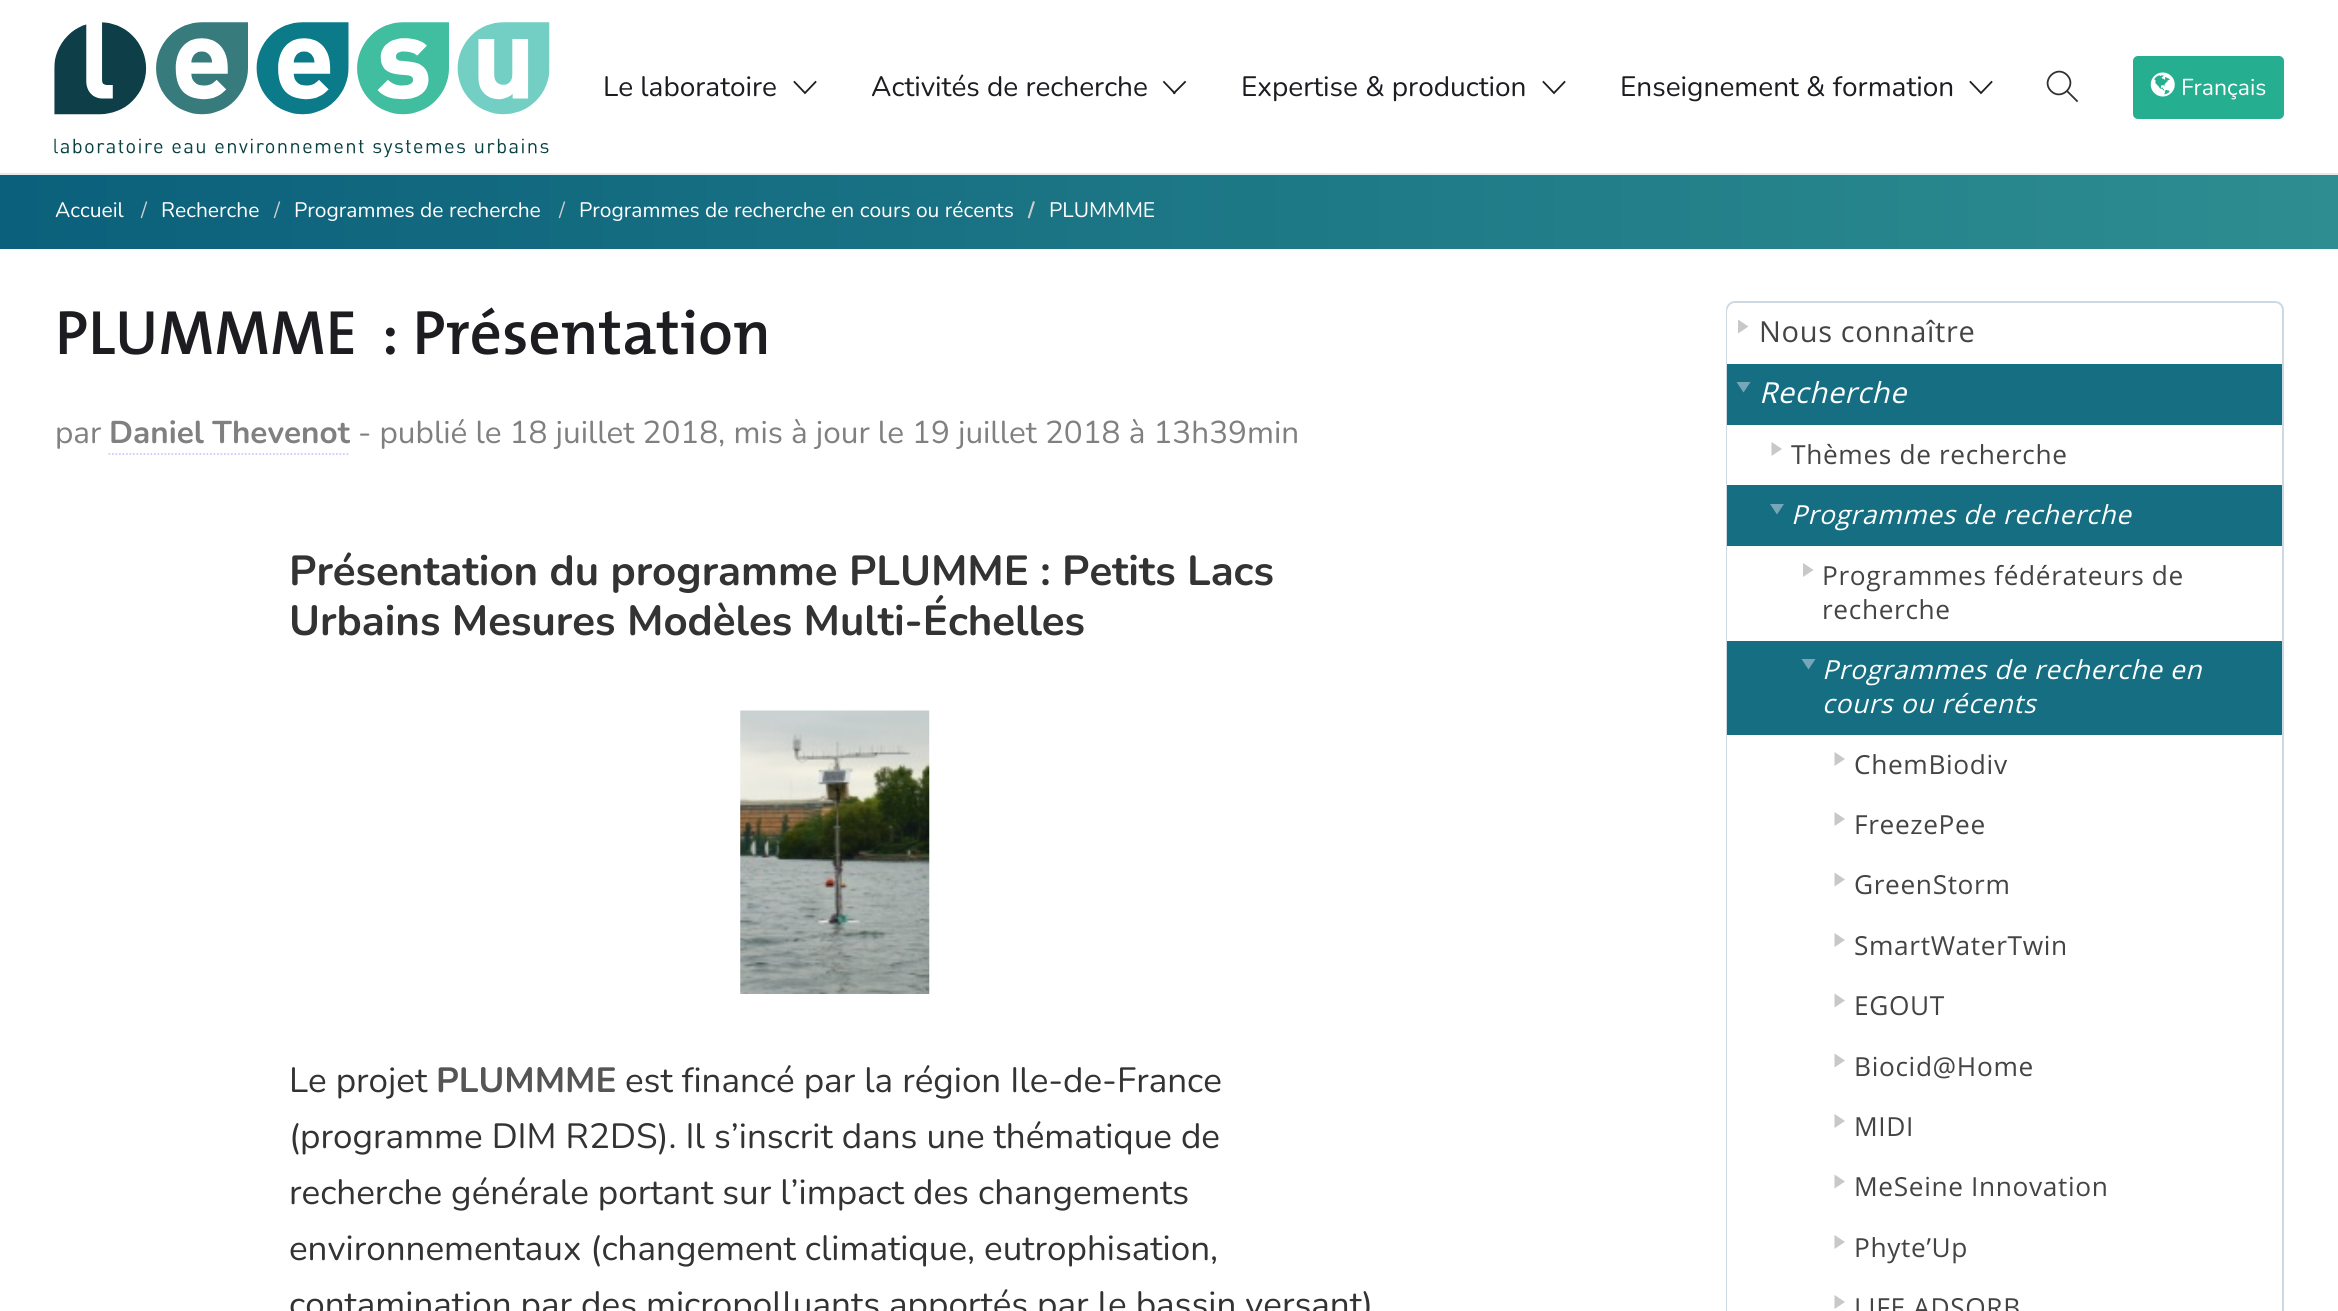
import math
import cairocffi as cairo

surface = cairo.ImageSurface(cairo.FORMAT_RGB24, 2338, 1311)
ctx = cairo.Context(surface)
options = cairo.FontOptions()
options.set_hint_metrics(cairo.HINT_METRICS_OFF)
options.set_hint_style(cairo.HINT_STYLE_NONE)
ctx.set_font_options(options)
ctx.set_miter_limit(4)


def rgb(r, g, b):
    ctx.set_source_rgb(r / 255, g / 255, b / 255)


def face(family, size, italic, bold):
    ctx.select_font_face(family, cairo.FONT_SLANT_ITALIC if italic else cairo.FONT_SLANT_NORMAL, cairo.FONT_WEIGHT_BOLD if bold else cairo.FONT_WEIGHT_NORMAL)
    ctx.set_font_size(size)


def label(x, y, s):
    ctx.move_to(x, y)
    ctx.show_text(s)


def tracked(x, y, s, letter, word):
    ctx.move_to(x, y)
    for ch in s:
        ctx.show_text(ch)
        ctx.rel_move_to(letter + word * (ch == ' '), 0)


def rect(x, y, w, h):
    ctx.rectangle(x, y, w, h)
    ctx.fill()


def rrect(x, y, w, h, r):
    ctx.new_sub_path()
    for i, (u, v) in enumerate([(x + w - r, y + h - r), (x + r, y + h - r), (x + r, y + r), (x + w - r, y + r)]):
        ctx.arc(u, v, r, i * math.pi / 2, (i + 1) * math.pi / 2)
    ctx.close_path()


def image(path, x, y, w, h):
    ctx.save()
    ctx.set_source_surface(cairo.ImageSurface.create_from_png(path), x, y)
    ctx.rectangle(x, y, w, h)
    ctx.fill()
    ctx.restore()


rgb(255, 255, 255)
ctx.paint()
rgb(232, 232, 233)
rect(0, 173, 2338, 2)
image('image0.png', 54, 22, 496, 136)
face('Nunito', 28, 0, 0)
rgb(28, 28, 33)
label(603, 96, 'Le laboratoire')
ctx.new_path()
ctx.move_to(794.5, 82)
ctx.line_to(805, 93)
ctx.move_to(815.5, 82)
ctx.line_to(805, 93)
ctx.set_line_width(1.8)
ctx.set_line_cap(cairo.LINE_CAP_SQUARE)
ctx.stroke()
label(871, 96, 'Activités de recherche')
ctx.new_path()
ctx.move_to(1164, 82)
ctx.line_to(1174.5, 93)
ctx.move_to(1185, 82)
ctx.line_to(1174, 93)
ctx.stroke()
label(1241, 96, 'Expertise & production')
ctx.new_path()
ctx.move_to(1543.5, 82)
ctx.line_to(1554, 93)
ctx.move_to(1564.5, 82)
ctx.line_to(1554, 93)
ctx.stroke()
label(1620, 96, 'Enseignement & formation')
ctx.new_path()
ctx.move_to(1970.5, 82)
ctx.line_to(1981, 93)
ctx.move_to(1991.5, 82)
ctx.line_to(1981, 93)
ctx.stroke()
ctx.new_path()
ctx.move_to(2067, 91)
ctx.line_to(2077, 101)
ctx.move_to(2067, 75)
ctx.curve_to(2077.5, 85.5, 2061.5, 101.5, 2051, 91)
ctx.curve_to(2040.5, 80.5, 2056.5, 64.5, 2067, 75)
rgb(49, 49, 53)
ctx.stroke()
rgb(38, 174, 144)
rrect(2133, 56, 151, 63, 5)
ctx.fill()
image('image1.png', 2150, 72, 25, 25)
face('Nunito', 23, 0, 0)
rgb(255, 255, 255)
label(2181, 95, 'Français')
gradient = cairo.LinearGradient(0, 212, 2338, 212)
gradient.add_color_stop_rgba(0, 0.043, 0.376, 0.482, 1)
gradient.add_color_stop_rgba(1, 0.176, 0.553, 0.565, 1)
ctx.set_source(gradient)
rect(0, 175, 2338, 74)
face('Nunito', 21, 0, 0)
rgb(255, 255, 255)
label(55, 217, 'Accueil')
rgb(204, 204, 204)
label(141, 217, '/')
rgb(255, 255, 255)
label(161, 217, 'Recherche')
rgb(204, 204, 204)
label(274, 217, '/')
rgb(255, 255, 255)
label(294, 217, 'Programmes de recherche')
rgb(204, 204, 204)
label(559, 217, '/')
rgb(255, 255, 255)
label(579, 217, 'Programmes de recherche en cours ou récents')
face('Nunito', 21, 0, 1)
rgb(204, 204, 204)
label(1028, 217, '/')
face('Nunito', 21, 0, 0)
rgb(255, 255, 255)
label(1049, 217, 'PLUMMME')
face('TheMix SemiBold', 63, 0, 0)
rgb(28, 28, 33)
label(55, 354, 'PLUMMME')
label(382, 354, ': Présentation')
face('Nunito', 31.5, 0, 0)
rgb(128, 128, 128)
label(55, 443, 'par')
ctx.new_path()
ctx.move_to(108.5, 454)
ctx.line_to(350, 454)
rgb(204, 204, 255)
ctx.set_line_cap(cairo.LINE_CAP_BUTT)
ctx.set_dash([1.75, 1.75])
ctx.stroke()
face('Nunito', 31.5, 0, 1)
rgb(128, 128, 128)
label(109, 443, 'Daniel Thevenot')
face('Nunito', 31.5, 0, 0)
label(358, 443, '- publié le 18 juillet 2018, mis à jour le 19 juillet 2018 à 13h39min')
face('Nunito', 42, 0, 1)
rgb(51, 51, 51)
label(289, 585, 'Présentation du programme PLUMME : Petits Lacs')
label(289, 635, 'Urbains Mesures Modèles Multi-Échelles')
image('image2.png', 740, 710, 190, 284)
face('Nunito', 35, 0, 0)
label(289, 1092, 'Le projet')
face('Nunito', 35, 0, 1)
rgb(85, 85, 85)
label(436, 1092, 'PLUMMME')
face('Nunito', 35, 0, 0)
rgb(51, 51, 51)
label(625, 1092, 'est financé par la région Ile-de-France')
label(289, 1148, '(programme DIM R2DS). Il s’inscrit dans une thématique de')
label(289, 1204, 'recherche générale portant sur l’impact des changements')
label(289, 1260, 'environnementaux (changement climatique, eutrophisation,')
label(289, 1316, 'contamination par des micropolluants apportés par le bassin versant)')
rrect(1727, 302, 556, 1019, 8)
rgb(204, 217, 226)
ctx.set_line_width(2)
ctx.set_dash([])
ctx.stroke()
rgb(255, 255, 255)
rrect(1727, 303, 555, 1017, 9)
ctx.fill()
rgb(200, 200, 200)
ctx.new_path()
ctx.move_to(1738, 333.5)
ctx.line_to(1738, 319.5)
ctx.line_to(1748.5, 326.5)
ctx.close_path()
ctx.fill()
face('Open Sans', 29, 0, 0)
rgb(68, 68, 68)
tracked(1759, 342, 'Nous connaître', 0.65, 0)
rgb(21, 110, 129)
rect(1727, 364, 555, 61)
rgb(118, 166, 184)
ctx.new_path()
ctx.move_to(1736.5, 382)
ctx.line_to(1750.5, 382)
ctx.line_to(1743.5, 392.5)
ctx.close_path()
ctx.fill()
face('Open Sans', 29, 1, 0)
rgb(255, 255, 255)
tracked(1759, 403, 'Recherche', 0.65, 0)
rgb(200, 200, 200)
ctx.new_path()
ctx.move_to(1771.5, 456)
ctx.line_to(1771.5, 442)
ctx.line_to(1782, 449)
ctx.close_path()
ctx.fill()
face('Open Sans', 26.25, 0, 0)
rgb(68, 68, 68)
tracked(1791, 464, 'Thèmes de recherche', 0.65, 0)
rgb(21, 110, 129)
rect(1727, 485, 555, 61)
rgb(118, 166, 184)
ctx.new_path()
ctx.move_to(1770, 504)
ctx.line_to(1784, 504)
ctx.line_to(1777, 514.5)
ctx.close_path()
ctx.fill()
face('Open Sans', 26.25, 1, 0)
rgb(255, 255, 255)
tracked(1791, 524, 'Programmes de recherche', 0.65, 0)
rgb(200, 200, 200)
ctx.new_path()
ctx.move_to(1803, 577)
ctx.line_to(1803, 563)
ctx.line_to(1813.5, 570)
ctx.close_path()
ctx.fill()
face('Open Sans', 26.25, 0, 0)
rgb(68, 68, 68)
tracked(1822, 585, 'Programmes fédérateurs de', 0.65, 0)
tracked(1822, 619, 'recherche', 0.65, 0)
rgb(21, 110, 129)
rect(1727, 641, 555, 94)
rgb(118, 166, 184)
ctx.new_path()
ctx.move_to(1801.5, 659)
ctx.line_to(1815.5, 659)
ctx.line_to(1808.5, 669.5)
ctx.close_path()
ctx.fill()
face('Open Sans', 26.25, 1, 0)
rgb(255, 255, 255)
tracked(1822, 679, 'Programmes de recherche en', 0.65, 0)
tracked(1822, 713, 'cours ou récents', 0.65, 0)
rgb(200, 200, 200)
ctx.new_path()
ctx.move_to(1834.5, 766)
ctx.line_to(1834.5, 752)
ctx.line_to(1845, 759)
ctx.close_path()
ctx.fill()
face('Open Sans', 26.25, 0, 0)
rgb(68, 68, 68)
tracked(1854, 774, 'ChemBiodiv', 0.65, 0)
rgb(200, 200, 200)
ctx.new_path()
ctx.move_to(1834.5, 826)
ctx.line_to(1834.5, 812)
ctx.line_to(1845, 819)
ctx.close_path()
ctx.fill()
rgb(68, 68, 68)
tracked(1854, 834, 'FreezePee', 0.65, 0)
rgb(200, 200, 200)
ctx.new_path()
ctx.move_to(1834.5, 886.5)
ctx.line_to(1834.5, 872.5)
ctx.line_to(1845, 879.5)
ctx.close_path()
ctx.fill()
rgb(68, 68, 68)
tracked(1854, 894, 'GreenStorm', 0.65, 0)
rgb(200, 200, 200)
ctx.new_path()
ctx.move_to(1834.5, 947)
ctx.line_to(1834.5, 933)
ctx.line_to(1845, 940)
ctx.close_path()
ctx.fill()
rgb(68, 68, 68)
tracked(1854, 955, 'SmartWaterTwin', 0.65, 0)
rgb(200, 200, 200)
ctx.new_path()
ctx.move_to(1834.5, 1007.5)
ctx.line_to(1834.5, 993.5)
ctx.line_to(1845, 1000.5)
ctx.close_path()
ctx.fill()
rgb(68, 68, 68)
tracked(1854, 1015, 'EGOUT', 0.65, 0)
rgb(200, 200, 200)
ctx.new_path()
ctx.move_to(1834.5, 1067.5)
ctx.line_to(1834.5, 1053.5)
ctx.line_to(1845, 1060.5)
ctx.close_path()
ctx.fill()
rgb(68, 68, 68)
tracked(1854, 1076, 'Biocid@Home', 0.65, 0)
rgb(200, 200, 200)
ctx.new_path()
ctx.move_to(1834.5, 1128)
ctx.line_to(1834.5, 1114)
ctx.line_to(1845, 1121)
ctx.close_path()
ctx.fill()
rgb(68, 68, 68)
tracked(1854, 1136, 'MIDI', 0.65, 0)
rgb(200, 200, 200)
ctx.new_path()
ctx.move_to(1834.5, 1188.5)
ctx.line_to(1834.5, 1174.5)
ctx.line_to(1845, 1181.5)
ctx.close_path()
ctx.fill()
rgb(68, 68, 68)
tracked(1854, 1196, 'MeSeine Innovation', 0.65, 0)
rgb(200, 200, 200)
ctx.new_path()
ctx.move_to(1834.5, 1249)
ctx.line_to(1834.5, 1235)
ctx.line_to(1845, 1242)
ctx.close_path()
ctx.fill()
rgb(68, 68, 68)
tracked(1854, 1257, 'Phyte’Up', 0.65, 0)
rgb(200, 200, 200)
ctx.new_path()
ctx.move_to(1834.5, 1309)
ctx.line_to(1834.5, 1295)
ctx.line_to(1845, 1302)
ctx.close_path()
ctx.fill()
rgb(68, 68, 68)
tracked(1854, 1317, 'LIFE ADSORB', 0.65, 0)
surface.write_to_png('render.png')
